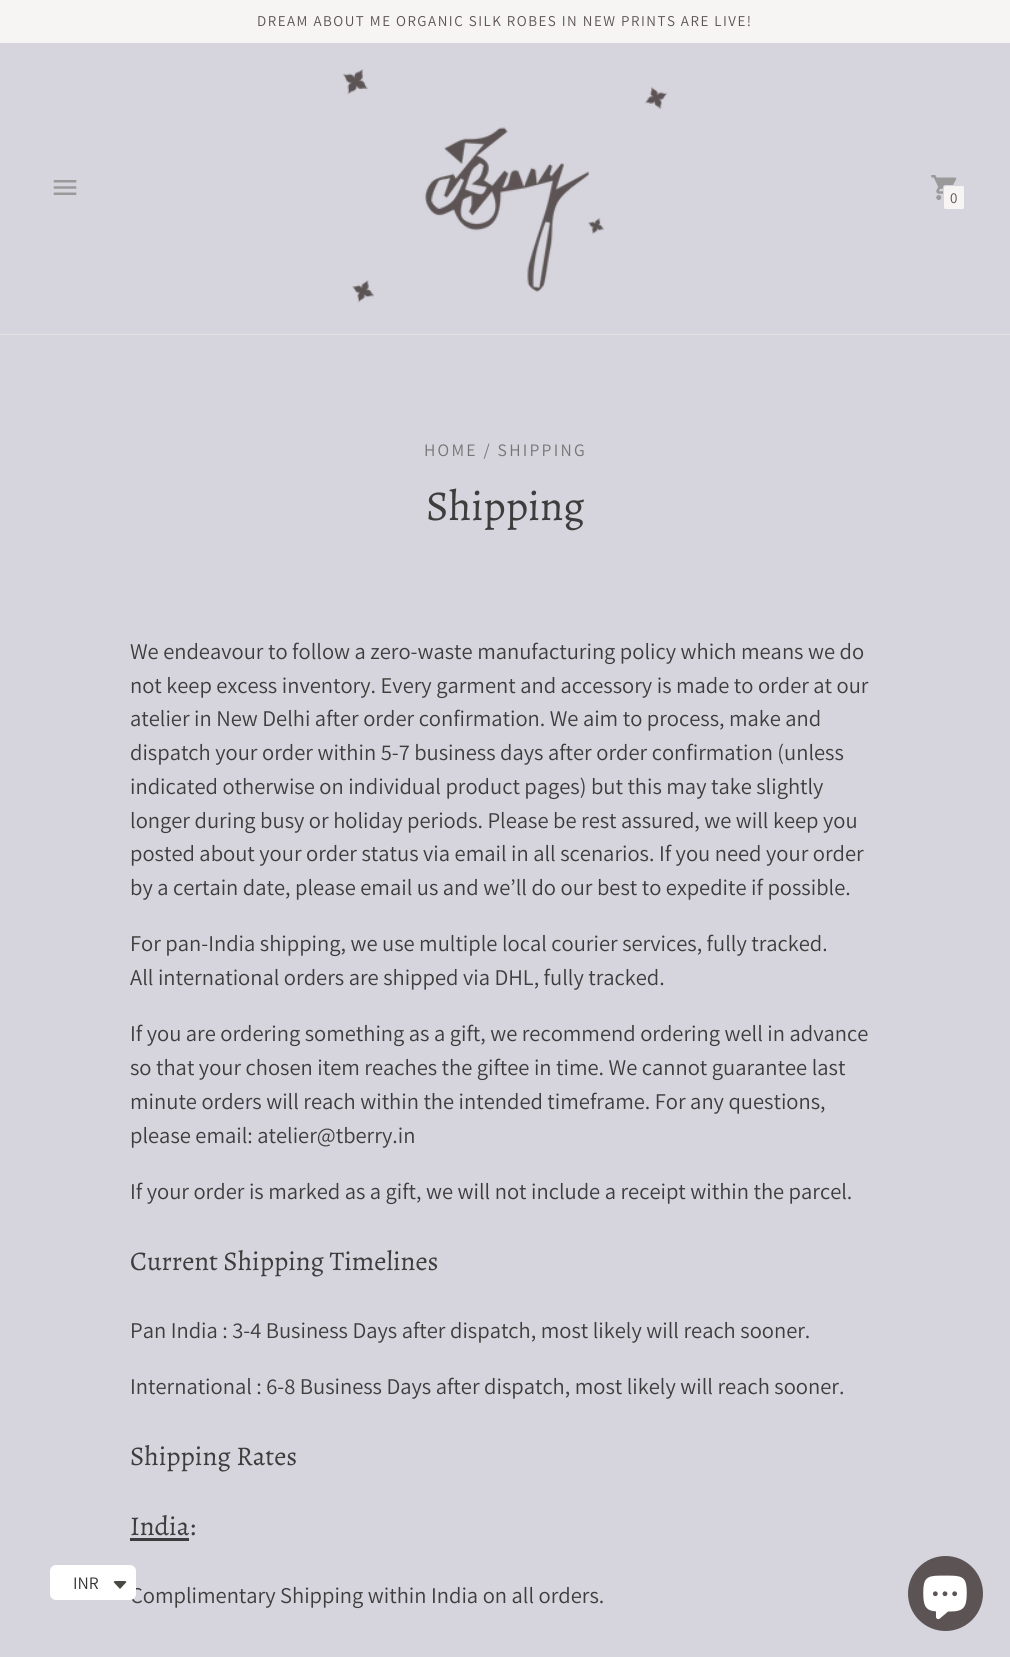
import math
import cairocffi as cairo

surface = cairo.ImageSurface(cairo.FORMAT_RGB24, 1010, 1657)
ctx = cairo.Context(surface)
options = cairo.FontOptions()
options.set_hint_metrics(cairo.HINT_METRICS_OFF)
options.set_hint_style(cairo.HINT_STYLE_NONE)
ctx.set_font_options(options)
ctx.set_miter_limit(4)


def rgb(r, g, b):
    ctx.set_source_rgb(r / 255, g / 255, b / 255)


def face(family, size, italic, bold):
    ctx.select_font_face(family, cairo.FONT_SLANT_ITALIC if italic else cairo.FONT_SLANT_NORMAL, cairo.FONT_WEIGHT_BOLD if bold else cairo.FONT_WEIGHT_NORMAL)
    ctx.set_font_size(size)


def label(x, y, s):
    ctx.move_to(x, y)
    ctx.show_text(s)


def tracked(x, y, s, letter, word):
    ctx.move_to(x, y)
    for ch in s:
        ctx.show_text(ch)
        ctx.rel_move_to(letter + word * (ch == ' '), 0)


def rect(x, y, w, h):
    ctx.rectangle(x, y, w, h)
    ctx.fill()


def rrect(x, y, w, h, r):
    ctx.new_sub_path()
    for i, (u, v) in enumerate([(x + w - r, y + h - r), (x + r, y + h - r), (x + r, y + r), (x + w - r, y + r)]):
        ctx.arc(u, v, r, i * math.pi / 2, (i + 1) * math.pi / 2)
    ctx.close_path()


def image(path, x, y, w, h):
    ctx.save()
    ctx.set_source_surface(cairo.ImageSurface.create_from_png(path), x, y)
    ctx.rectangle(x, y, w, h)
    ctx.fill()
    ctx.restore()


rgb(214, 212, 220)
ctx.paint()
rgb(247, 244, 244)
rect(0, 0, 1010, 43)
face('Assistant', 15, 0, 0)
rgb(91, 83, 84)
tracked(257, 26, 'DREAM ABOUT ME ORGANIC SILK ROBES IN NEW PRINTS ARE LIVE!', 1.5, 0)
rgb(226, 226, 226)
rect(0, 334, 1010, 1)
image('image0.png', 53, 180, 24, 15)
image('image1.png', 342, 69, 326, 234)
image('image2.png', 931, 175, 26, 25)
rgb(247, 244, 244)
rrect(943.5, 185.5, 21, 24, 2)
ctx.fill_preserve()
rgb(214, 212, 220)
ctx.set_line_width(1)
ctx.stroke()
rgb(91, 83, 84)
label(950, 203, '0')
face('Assistant', 17.5, 0, 0)
rgb(117, 117, 117)
tracked(424, 456, 'HOME / SHIPPING', 2.25, 0)
face('Alegreya', 42.5, 0, 0)
rgb(61, 61, 61)
label(426, 520, 'Shipping')
face('Assistant', 22.5, 0, 0)
label(130, 659, 'We endeavour to follow a zero-waste manufacturing policy which means we do')
label(130, 693, 'not keep excess inventory. Every garment and accessory is made to order at our')
label(130, 726, 'atelier in New Delhi after order confirmation. We aim to process, make and')
label(130, 760, 'dispatch your order within 5-7 business days after order confirmation (unless')
label(130, 794, 'indicated otherwise on individual product pages) but this may take slightly')
label(130, 828, 'longer during busy or holiday periods. Please be rest assured, we will keep you')
label(130, 861, 'posted about your order status via email in all scenarios. If you need your order')
label(130, 895, 'by a certain date, please email us and we’ll do our best to expedite if possible.')
label(130, 951, 'For pan-India shipping, we use multiple local courier services, fully tracked.')
label(130, 985, 'All international orders are shipped via DHL, fully tracked.')
label(130, 1041, 'If you are ordering something as a gift, we recommend ordering well in advance')
label(130, 1075, 'so that your chosen item reaches the giftee in time. We cannot guarantee last')
label(130, 1109, 'minute orders will reach within the intended timeframe. For any questions,')
label(130, 1143, 'please email: atelier@tberry.in')
label(130, 1199, 'If your order is marked as a gift, we will not include a receipt within the parcel.')
face('Alegreya', 27, 0, 0)
label(130, 1270, 'Current Shipping Timelines')
face('Assistant', 22.5, 0, 0)
label(130, 1338, 'Pan India : 3-4 Business Days after dispatch, most likely will reach sooner.')
label(130, 1394, 'International : 6-8 Business Days after dispatch, most likely will reach sooner.')
face('Alegreya', 27, 0, 0)
label(130, 1465, 'Shipping Rates')
label(130, 1535, 'India:')
rect(130, 1538, 59, 3)
face('Assistant', 22.5, 0, 0)
label(130, 1603, 'Complimentary Shipping within India on all orders.')
rgb(255, 255, 255)
rrect(50, 1565, 86, 35, 6)
ctx.fill()
face('Assistant', 17.5, 0, 0)
rgb(51, 51, 51)
label(73, 1589, 'INR')
rgb(71, 73, 66)
ctx.new_path()
ctx.move_to(113.5, 1582)
ctx.line_to(115, 1581)
ctx.line_to(125, 1581)
ctx.line_to(126.5, 1582)
ctx.line_to(120, 1589)
ctx.close_path()
ctx.fill()
rgb(91, 83, 84)
ctx.arc(945.5, 1593.5, 37.5, 0, 2 * math.pi)
ctx.fill()
image('image3.png', 923, 1575, 44, 45)
surface.write_to_png('render.png')
